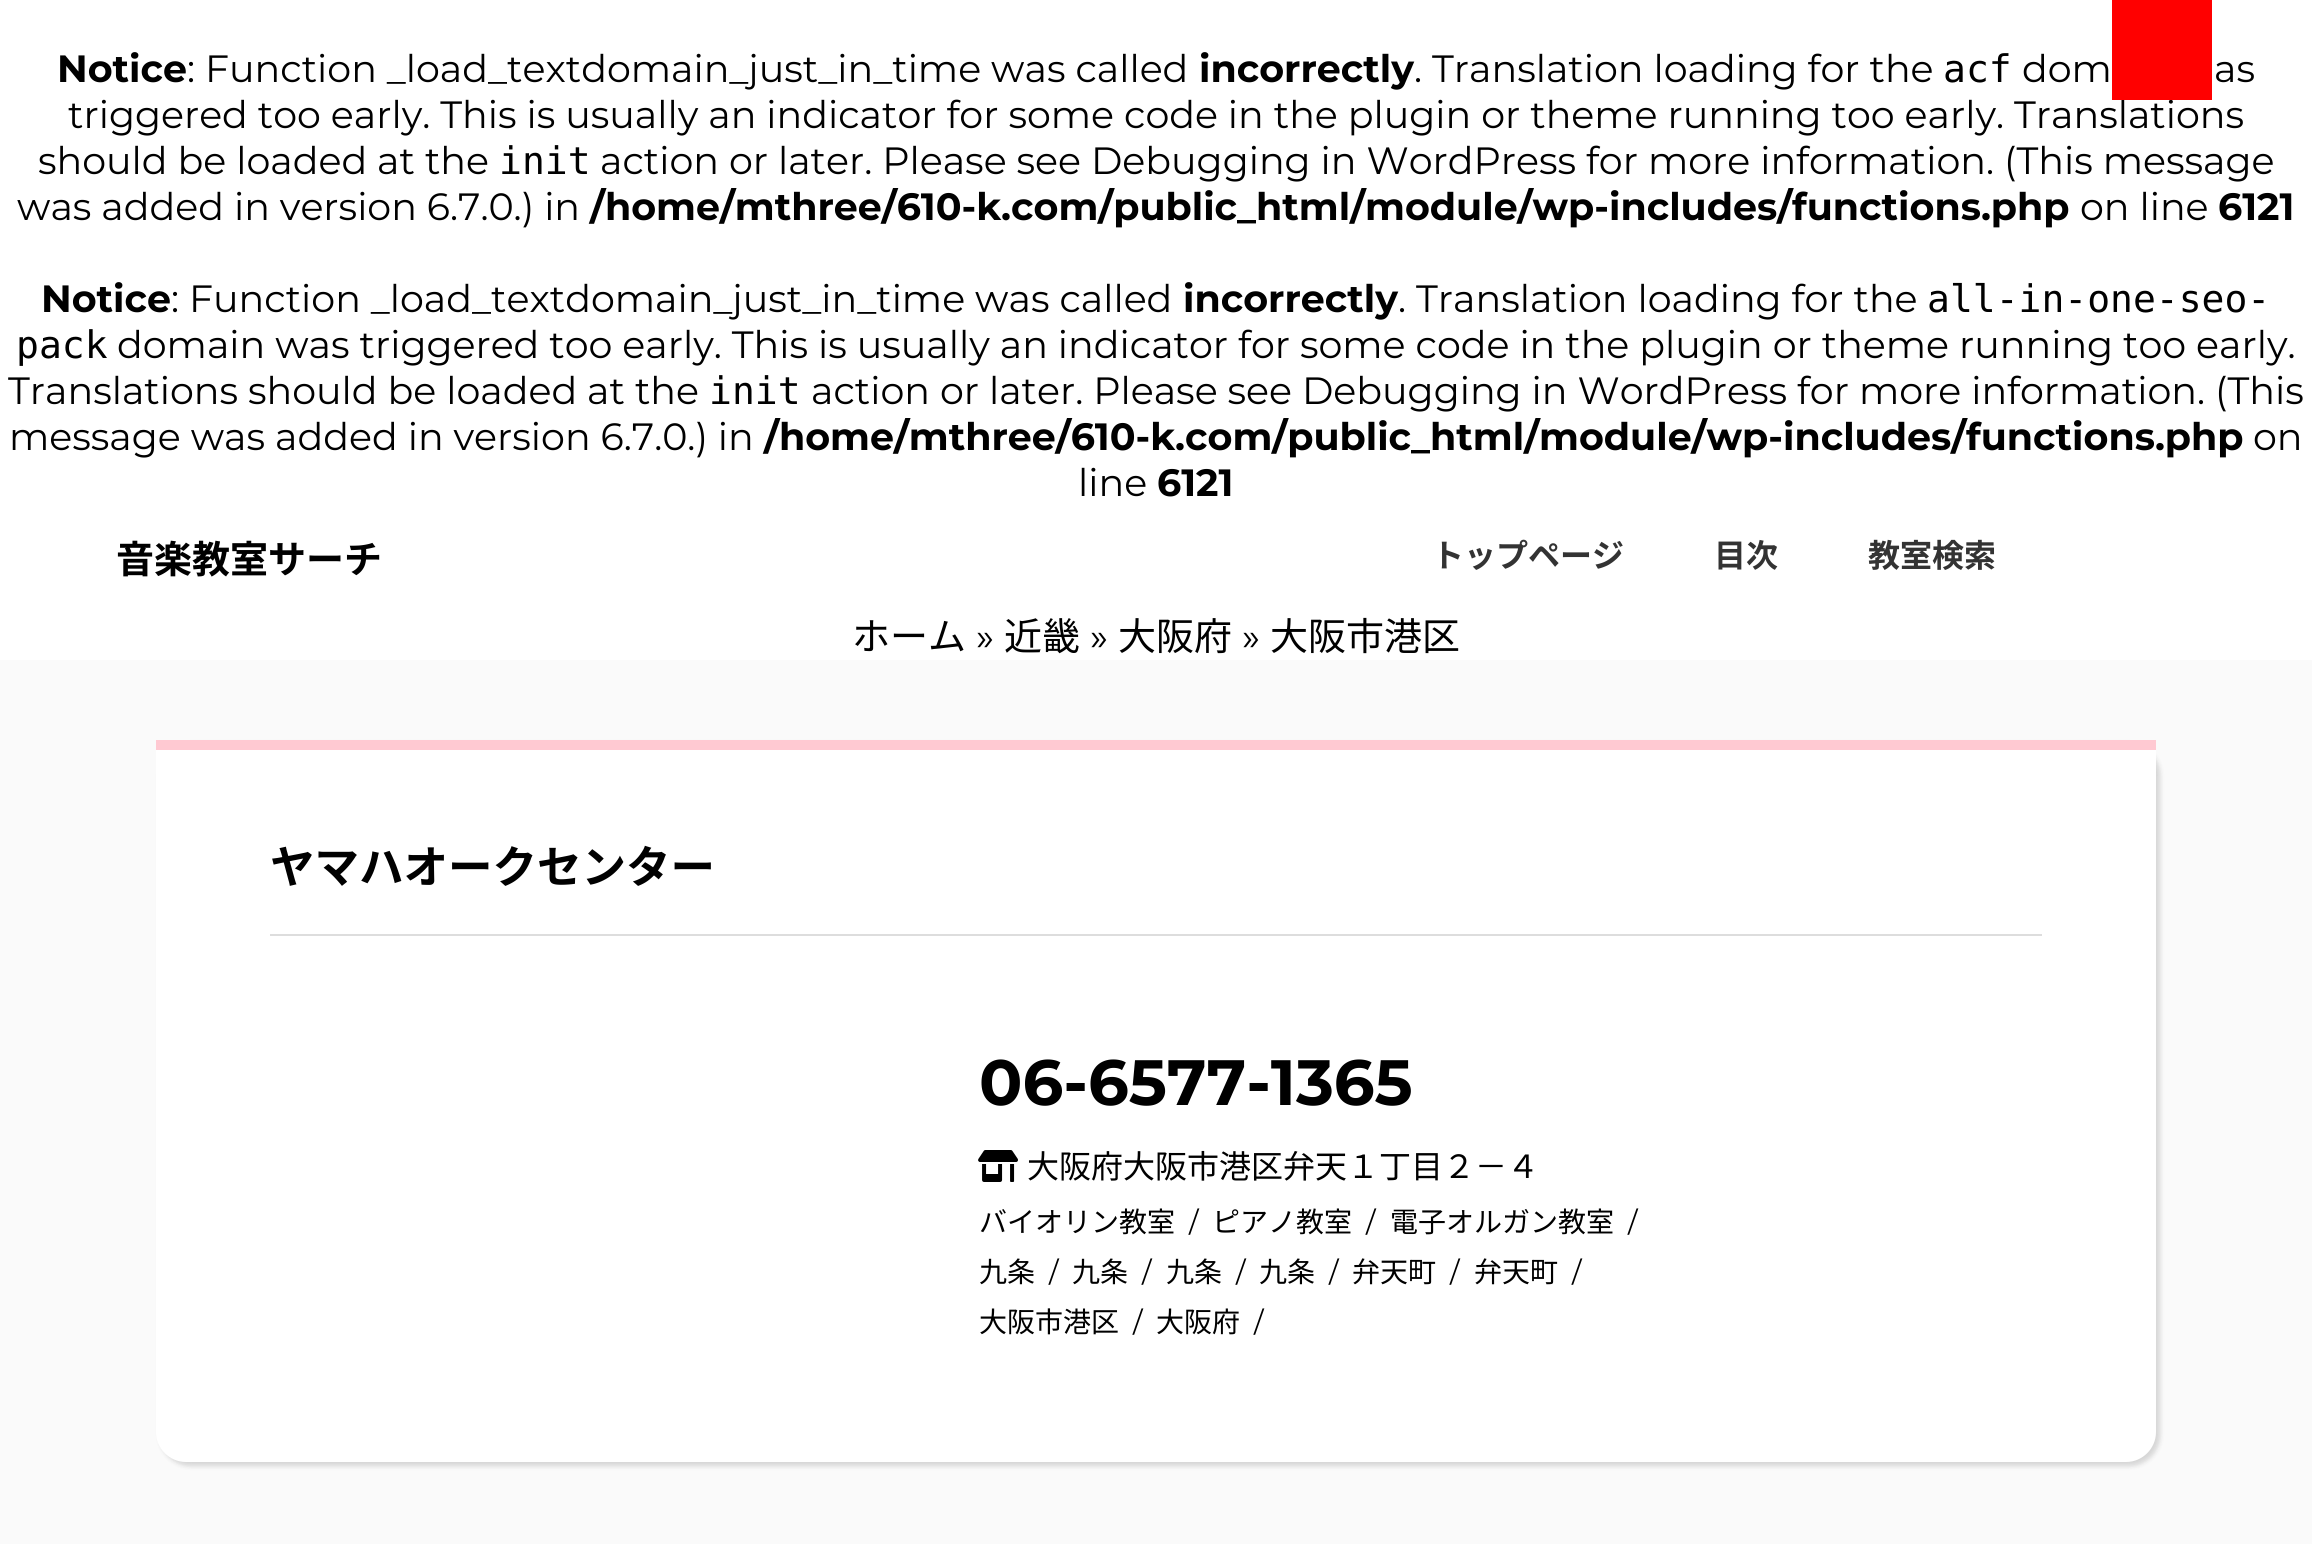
import math
import cairocffi as cairo

surface = cairo.ImageSurface(cairo.FORMAT_RGB24, 2312, 1544)
ctx = cairo.Context(surface)
options = cairo.FontOptions()
options.set_hint_metrics(cairo.HINT_METRICS_OFF)
options.set_hint_style(cairo.HINT_STYLE_NONE)
ctx.set_font_options(options)
ctx.set_miter_limit(4)


def rgb(r, g, b):
    ctx.set_source_rgb(r / 255, g / 255, b / 255)


def face(family, size, italic, bold):
    ctx.select_font_face(family, cairo.FONT_SLANT_ITALIC if italic else cairo.FONT_SLANT_NORMAL, cairo.FONT_WEIGHT_BOLD if bold else cairo.FONT_WEIGHT_NORMAL)
    ctx.set_font_size(size)


def label(x, y, s):
    ctx.move_to(x, y)
    ctx.show_text(s)


def rect(x, y, w, h):
    ctx.rectangle(x, y, w, h)
    ctx.fill()


def rrect(x, y, w, h, r):
    ctx.new_sub_path()
    for i, (u, v) in enumerate([(x + w - r, y + h - r), (x + r, y + h - r), (x + r, y + r), (x + w - r, y + r)]):
        ctx.arc(u, v, r, i * math.pi / 2, (i + 1) * math.pi / 2)
    ctx.close_path()


def soft_shadow(x, y, w, h, r, blur, alpha):
    ctx.push_group_with_content(cairo.CONTENT_ALPHA)
    ctx.set_operator(cairo.OPERATOR_SOURCE)
    for i in range(15, -16, -2):
        e = blur * i / 6
        if min(w, h) + 2 * e > 0:
            ctx.set_source_rgba(0, 0, 0, alpha * math.erfc((i - 1) / 8.5) / 2)
            rrect(x - e, y - e, w + 2 * e, h + 2 * e, max(0, min(r + e + blur * .6, min(w, h) / 2 + e)))
            ctx.fill()
    ctx.mask(ctx.pop_group())


def image(path, x, y, w, h):
    ctx.save()
    ctx.set_source_surface(cairo.ImageSurface.create_from_png(path), x, y)
    ctx.rectangle(x, y, w, h)
    ctx.fill()
    ctx.restore()


rgb(255, 255, 255)
ctx.paint()
face('Montserrat', 38, 0, 1)
rgb(0, 0, 0)
label(57, 82, 'Notice')
face('Montserrat', 38, 0, 0)
label(187, 82, ': Function _load_textdomain_just_in_time was called')
face('Montserrat', 38, 0, 1)
label(1199, 82, 'incorrectly')
face('Montserrat', 38, 0, 0)
label(1414, 82, '. Translation loading for the')
face('DejaVu Sans Mono', 38, 0, 0)
label(1943, 82, 'acf')
face('Montserrat', 38, 0, 0)
label(2022, 82, 'dom')
label(68, 128, 'triggered too early. This is usually an indicator for some code in the plugin or theme running too early. Translations')
rgb(255, 0, 0)
rect(2112, 0, 100, 100)
rgb(0, 0, 0)
label(2214, 82, 'as')
label(38, 174, 'should be loaded at the')
face('DejaVu Sans Mono', 38, 0, 0)
label(499, 174, 'init')
face('Montserrat', 38, 0, 0)
label(600, 174, 'action or later. Please see Debugging in WordPress for more information. (This message')
label(17, 220, 'was added in version 6.7.0.) in')
face('Montserrat', 38, 0, 1)
label(590, 220, '/home/mthree/610-k.com/public_html/module/wp-includes/functions.php')
face('Montserrat', 38, 0, 0)
label(2080, 220, 'on line')
face('Montserrat', 38, 0, 1)
label(2218, 220, '6121')
label(41, 312, 'Notice')
face('Montserrat', 38, 0, 0)
label(171, 312, ': Function _load_textdomain_just_in_time was called')
face('Montserrat', 38, 0, 1)
label(1183, 312, 'incorrectly')
face('Montserrat', 38, 0, 0)
label(1398, 312, '. Translation loading for the')
face('DejaVu Sans Mono', 38, 0, 0)
label(1927, 312, 'all-in-one-seo-')
label(16, 358, 'pack')
face('Montserrat', 38, 0, 0)
label(117, 358, 'domain was triggered too early. This is usually an indicator for some code in the plugin or theme running too early.')
label(8, 404, 'Translations should be loaded at the')
face('DejaVu Sans Mono', 38, 0, 0)
label(709, 404, 'init')
face('Montserrat', 38, 0, 0)
label(811, 404, 'action or later. Please see Debugging in WordPress for more information. (This')
label(9, 450, 'message was added in version 6.7.0.) in')
face('Montserrat', 38, 0, 1)
label(764, 450, '/home/mthree/610-k.com/public_html/module/wp-includes/functions.php')
face('Montserrat', 38, 0, 0)
label(2253, 450, 'on')
label(1078, 496, 'line')
face('Montserrat', 38, 0, 1)
label(1157, 496, '6121')
face('Noto Sans JP', 38, 0, 1)
label(116, 573, '音楽教室サーチ')
face('Noto Sans JP', 32, 0, 1)
rgb(51, 51, 51)
label(1432, 567, 'トップページ')
label(1714, 567, '目次')
label(1868, 567, '教室検索')
face('Noto Sans JP', 38, 0, 0)
rgb(0, 0, 0)
label(852, 650, 'ホーム')
face('Montserrat', 38, 0, 0)
label(976, 650, '»')
face('Noto Sans JP', 38, 0, 0)
label(1004, 650, '近畿')
face('Montserrat', 38, 0, 0)
label(1090, 650, '»')
face('Noto Sans JP', 38, 0, 0)
label(1118, 650, '大阪府')
face('Montserrat', 38, 0, 0)
label(1242, 650, '»')
face('Noto Sans JP', 38, 0, 0)
label(1270, 650, '大阪市港区')
rgb(250, 250, 250)
rect(0, 660, 2312, 884)
rgb(0, 0, 0)
soft_shadow(160, 744, 2000, 722, 30, 2.5, 0.15)
rgb(255, 255, 255)
ctx.new_path()
ctx.move_to(156, 740)
ctx.line_to(2156, 740)
ctx.line_to(2156, 1432)
ctx.curve_to(2156, 1448.5, 2142.5, 1462, 2126, 1462)
ctx.line_to(186, 1462)
ctx.curve_to(169.5, 1462, 156, 1448.5, 156, 1432)
ctx.close_path()
ctx.fill()
rgb(255, 201, 210)
rect(156, 740, 2000, 10)
rgb(221, 221, 221)
rect(270, 934, 1772, 2)
face('Noto Sans JP', 44.5, 0, 1)
rgb(0, 0, 0)
label(270, 883, 'ヤマハオークセンター')
face('Montserrat', 64, 0, 1)
label(979, 1105, '06-6577-1365')
image('image0.png', 978, 1150, 40, 32)
face('Noto Sans JP', 32, 0, 0)
label(1027, 1178, '大阪府大阪市港区弁天１丁目２－４')
face('Noto Sans JP', 28, 0, 0)
label(979, 1232, 'バイオリン教室')
face('Montserrat', 28, 0, 0)
label(1189, 1232, '/')
face('Noto Sans JP', 28, 0, 0)
label(1212, 1232, 'ピアノ教室')
face('Montserrat', 28, 0, 0)
label(1366, 1232, '/')
face('Noto Sans JP', 28, 0, 0)
label(1390, 1232, '電子オルガン教室')
face('Montserrat', 28, 0, 0)
label(1628, 1232, '/')
face('Noto Sans JP', 28, 0, 0)
label(979, 1282, '九条')
face('Montserrat', 28, 0, 0)
label(1049, 1282, '/')
face('Noto Sans JP', 28, 0, 0)
label(1072, 1282, '九条')
face('Montserrat', 28, 0, 0)
label(1142, 1282, '/')
face('Noto Sans JP', 28, 0, 0)
label(1166, 1282, '九条')
face('Montserrat', 28, 0, 0)
label(1236, 1282, '/')
face('Noto Sans JP', 28, 0, 0)
label(1259, 1282, '九条')
face('Montserrat', 28, 0, 0)
label(1329, 1282, '/')
face('Noto Sans JP', 28, 0, 0)
label(1352, 1282, '弁天町')
face('Montserrat', 28, 0, 0)
label(1450, 1282, '/')
face('Noto Sans JP', 28, 0, 0)
label(1474, 1282, '弁天町')
face('Montserrat', 28, 0, 0)
label(1572, 1282, '/')
face('Noto Sans JP', 28, 0, 0)
label(979, 1332, '大阪市港区')
face('Montserrat', 28, 0, 0)
label(1133, 1332, '/')
face('Noto Sans JP', 28, 0, 0)
label(1156, 1332, '大阪府')
face('Montserrat', 28, 0, 0)
label(1254, 1332, '/')
surface.write_to_png('render.png')
